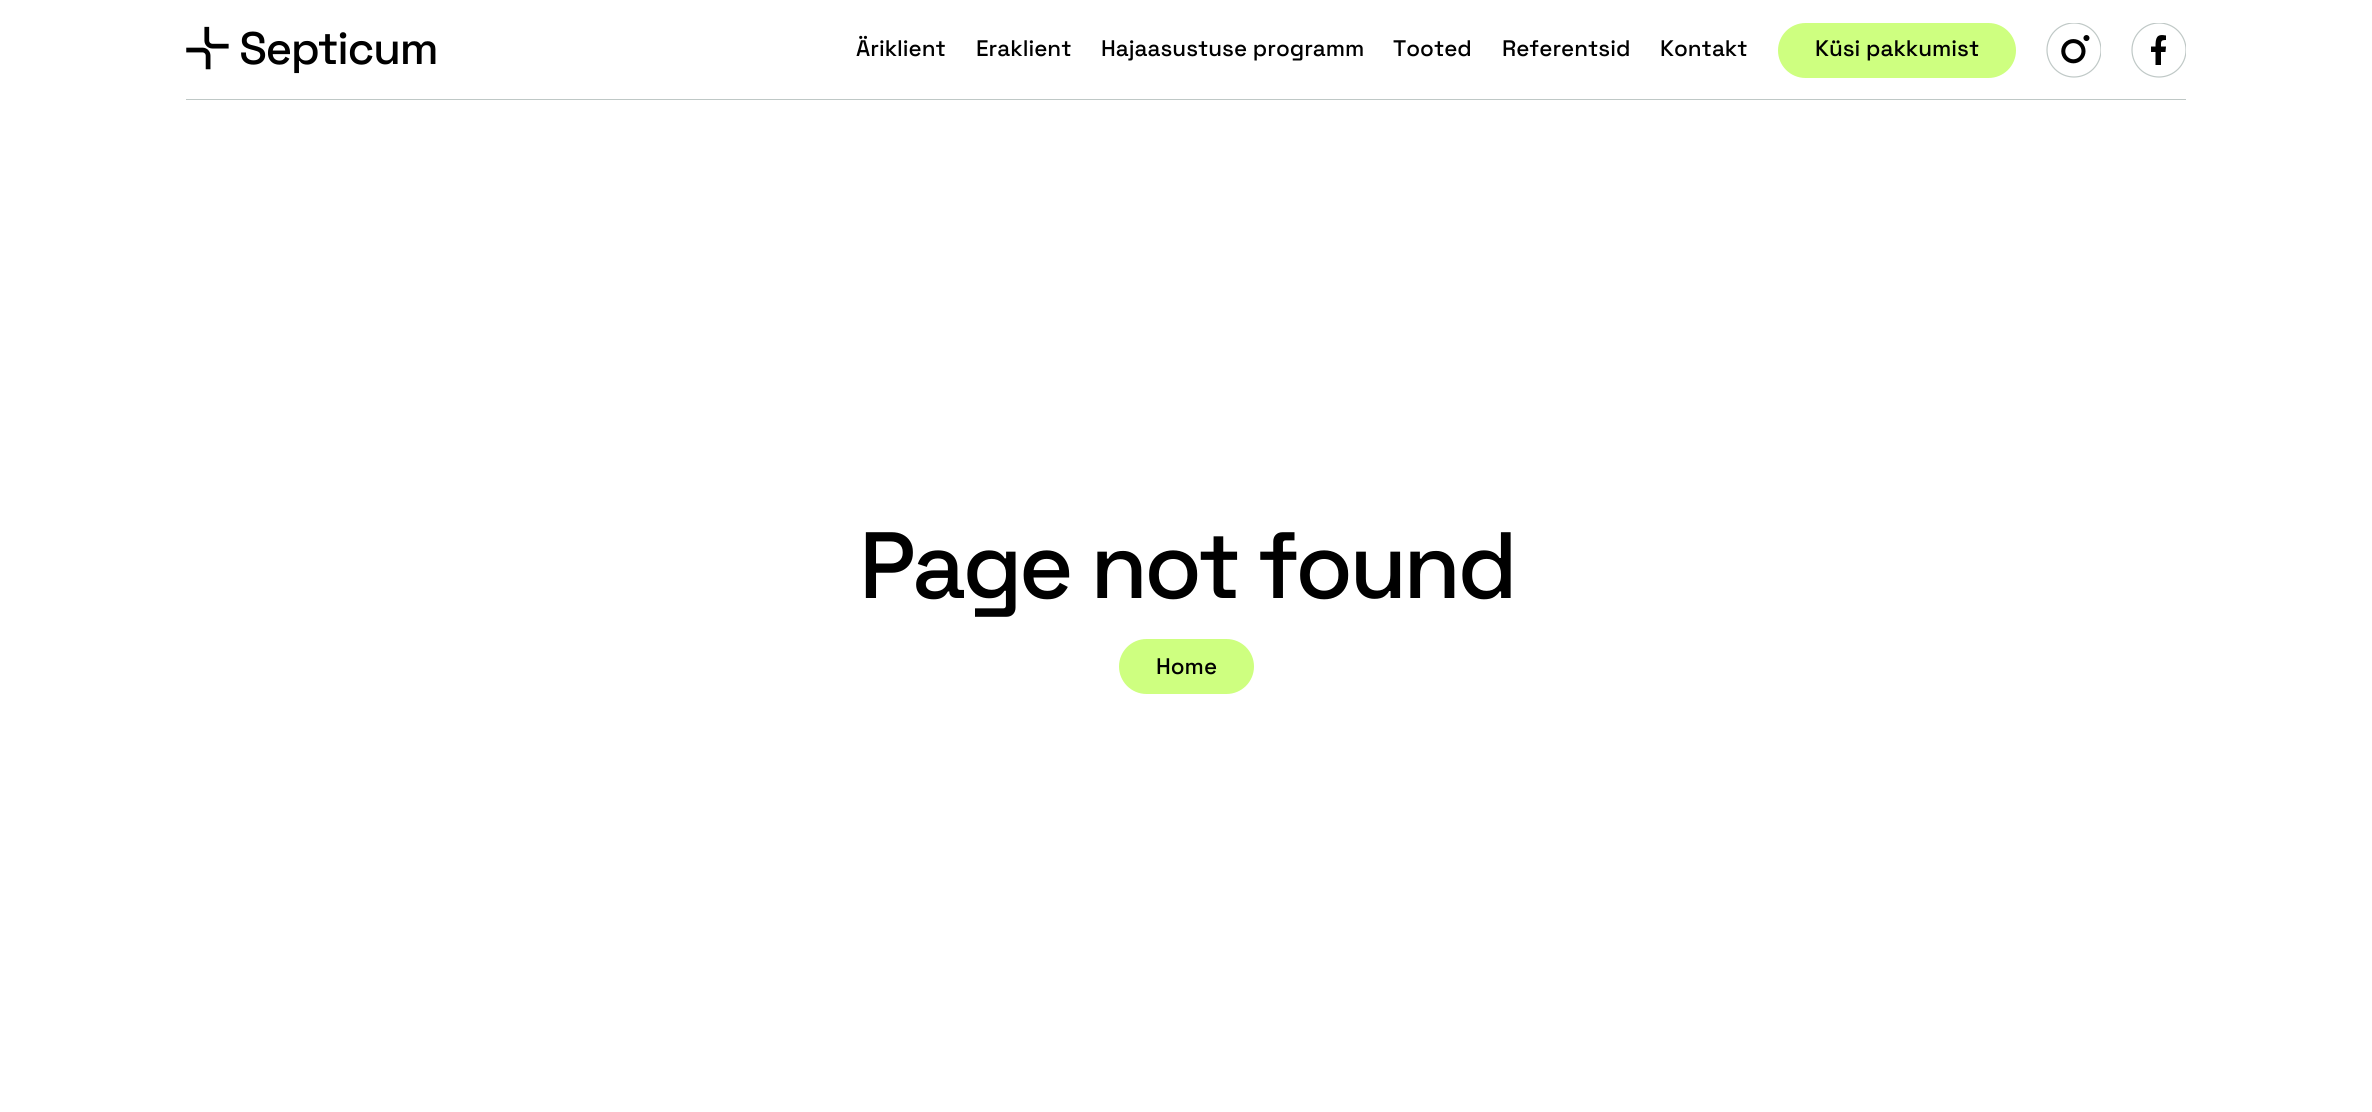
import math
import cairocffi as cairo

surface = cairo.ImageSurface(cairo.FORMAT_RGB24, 2372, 1112)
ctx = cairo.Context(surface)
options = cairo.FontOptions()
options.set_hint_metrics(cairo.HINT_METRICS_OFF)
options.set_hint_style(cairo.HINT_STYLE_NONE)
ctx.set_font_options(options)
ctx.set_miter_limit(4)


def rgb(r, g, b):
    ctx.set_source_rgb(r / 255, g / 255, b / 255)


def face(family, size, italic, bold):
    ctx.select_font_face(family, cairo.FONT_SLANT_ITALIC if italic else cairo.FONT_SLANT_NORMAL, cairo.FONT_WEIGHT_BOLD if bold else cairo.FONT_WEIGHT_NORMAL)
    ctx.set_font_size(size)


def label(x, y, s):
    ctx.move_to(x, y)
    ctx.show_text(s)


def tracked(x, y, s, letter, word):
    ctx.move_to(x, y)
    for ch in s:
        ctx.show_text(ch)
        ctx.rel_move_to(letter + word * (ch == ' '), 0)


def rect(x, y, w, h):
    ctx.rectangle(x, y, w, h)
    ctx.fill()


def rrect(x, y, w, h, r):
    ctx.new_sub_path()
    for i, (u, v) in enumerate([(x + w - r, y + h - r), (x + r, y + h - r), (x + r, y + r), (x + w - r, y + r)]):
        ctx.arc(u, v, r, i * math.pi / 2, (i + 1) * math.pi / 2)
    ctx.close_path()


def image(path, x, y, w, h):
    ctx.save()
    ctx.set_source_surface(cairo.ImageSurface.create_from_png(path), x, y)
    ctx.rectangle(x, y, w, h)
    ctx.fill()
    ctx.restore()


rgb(255, 255, 255)
ctx.paint()
rgb(191, 200, 198)
rect(186, 99, 2000, 1)
image('image0.png', 186, 26, 250, 48)
face('Space Grotesk Medium', 22.5, 0, 0)
rgb(0, 0, 0)
label(856, 56, 'Äriklient')
label(976, 56, 'Eraklient')
label(1101, 56, 'Hajaasustuse programm')
label(1393, 56, 'Tooted')
label(1502, 56, 'Referentsid')
label(1660, 56, 'Kontakt')
rgb(206, 255, 128)
rrect(1778, 23, 238, 55, 27.5)
ctx.fill()
rgb(0, 0, 0)
label(1815, 56, 'Küsi pakkumist')
image('image1.png', 2046, 23, 55, 55)
ctx.save()
ctx.rectangle(2131, 23, 55, 55)
ctx.clip()
ctx.arc(2159, 50, 27, 0, 2 * math.pi)
rgb(191, 200, 198)
ctx.set_line_width(1.2)
ctx.stroke()
ctx.restore()
ctx.set_fill_rule(cairo.FILL_RULE_EVEN_ODD)
ctx.new_path()
ctx.move_to(2155.5, 65)
ctx.line_to(2155.5, 52)
ctx.line_to(2151, 52)
ctx.line_to(2151, 46.5)
ctx.line_to(2155.5, 46.5)
ctx.curve_to(2155.5, 38, 2156.5, 33.5, 2166, 35.5)
ctx.line_to(2166, 40)
ctx.curve_to(2160.5, 40, 2161, 41.5, 2161, 46.5)
ctx.line_to(2166, 46.5)
ctx.line_to(2165.5, 52)
ctx.line_to(2161, 52)
ctx.line_to(2161, 65)
ctx.close_path()
ctx.fill()
face('Space Grotesk Medium', 94, 0, 0)
tracked(859, 598, 'Page not found', -3.75, 0)
rgb(206, 255, 128)
rrect(1119, 639, 135, 55, 27.5)
ctx.fill()
face('Space Grotesk Medium', 22.5, 0, 0)
rgb(0, 0, 0)
label(1156, 674, 'Home')
surface.write_to_png('render.png')
